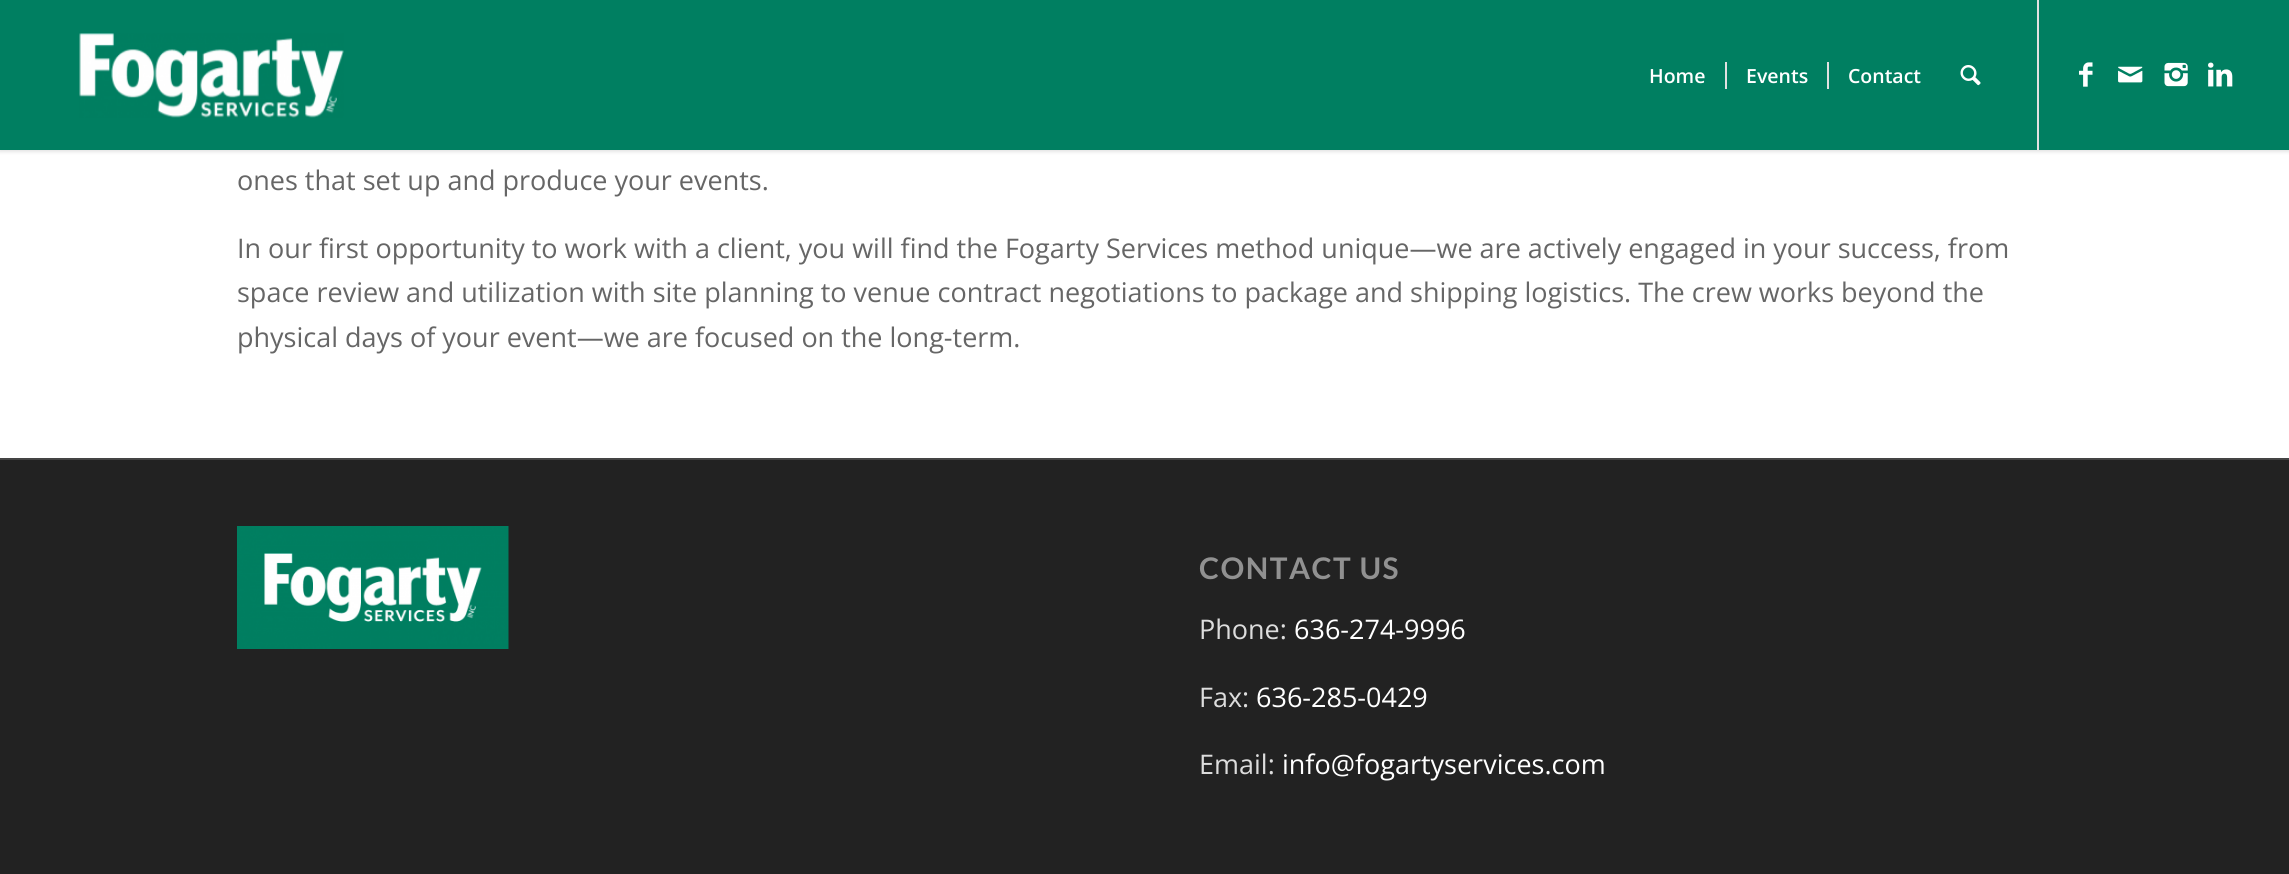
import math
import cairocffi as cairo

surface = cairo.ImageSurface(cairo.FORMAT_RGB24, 2289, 874)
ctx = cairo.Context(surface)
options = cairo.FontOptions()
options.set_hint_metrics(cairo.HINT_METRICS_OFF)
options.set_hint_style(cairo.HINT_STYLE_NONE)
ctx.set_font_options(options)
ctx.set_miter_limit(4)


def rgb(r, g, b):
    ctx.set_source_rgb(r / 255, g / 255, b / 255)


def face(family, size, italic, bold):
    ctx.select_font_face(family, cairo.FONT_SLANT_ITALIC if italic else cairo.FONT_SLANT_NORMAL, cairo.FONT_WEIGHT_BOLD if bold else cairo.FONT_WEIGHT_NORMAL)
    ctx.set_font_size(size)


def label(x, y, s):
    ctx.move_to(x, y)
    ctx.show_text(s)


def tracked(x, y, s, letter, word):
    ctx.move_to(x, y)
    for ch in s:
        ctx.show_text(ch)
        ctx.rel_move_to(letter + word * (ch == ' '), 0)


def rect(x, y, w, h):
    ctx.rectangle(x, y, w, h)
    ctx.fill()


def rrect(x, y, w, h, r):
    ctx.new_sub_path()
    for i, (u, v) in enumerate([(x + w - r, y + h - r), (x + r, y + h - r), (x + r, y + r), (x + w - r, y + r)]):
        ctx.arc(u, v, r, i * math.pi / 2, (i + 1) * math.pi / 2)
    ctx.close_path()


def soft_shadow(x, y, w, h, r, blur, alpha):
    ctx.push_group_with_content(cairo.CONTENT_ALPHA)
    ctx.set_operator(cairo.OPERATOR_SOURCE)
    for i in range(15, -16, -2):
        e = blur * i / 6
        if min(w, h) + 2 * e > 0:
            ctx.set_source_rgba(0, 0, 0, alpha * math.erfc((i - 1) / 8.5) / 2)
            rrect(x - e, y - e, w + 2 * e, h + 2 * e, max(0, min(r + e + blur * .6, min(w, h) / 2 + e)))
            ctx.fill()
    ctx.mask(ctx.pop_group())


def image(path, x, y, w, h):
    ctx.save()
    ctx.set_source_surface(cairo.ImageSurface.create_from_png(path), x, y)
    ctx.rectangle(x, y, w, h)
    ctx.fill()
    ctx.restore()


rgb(255, 255, 255)
ctx.paint()
rgb(0, 0, 0)
soft_shadow(-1, -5, 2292, 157, 0, 1.5, 0.1)
rgb(0, 127, 97)
rect(0, 0, 2289, 150)
image('image0.png', 79, 33, 265, 85)
rgb(225, 225, 225)
rect(2037, 0, 2, 150)
face('Open Sans SemiBold', 19.5, 0, 0)
rgb(255, 255, 255)
label(1649, 83, 'Home')
label(1746, 83, 'Events')
rgb(225, 225, 225)
rect(1725, 62, 2, 27)
rgb(255, 255, 255)
label(1848, 83, 'Contact')
rgb(225, 225, 225)
rect(1827, 62, 2, 27)
image('image1.png', 1960, 65, 21, 21)
image('image2.png', 2079, 62, 14, 25)
image('image3.png', 2118, 66, 25, 17)
image('image4.png', 2164, 62, 24, 25)
image('image5.png', 2208, 62, 25, 25)
face('Open Sans', 27, 0, 0)
rgb(102, 102, 102)
label(237, 190, 'ones that set up and produce your events.')
label(237, 258, 'In our first opportunity to work with a client, you will find the Fogarty Services method unique—we are actively engaged in your success, from')
label(237, 302, 'space review and utilization with site planning to venue contract negotiations to package and shipping logistics. The crew works beyond the')
label(237, 347, 'physical days of your event—we are focused on the long-term.')
rgb(34, 34, 34)
rect(0, 460, 2289, 414)
rgb(68, 68, 68)
rect(0, 458, 2289, 2)
image('image6.png', 237, 526, 272, 123)
face('Lato', 29.75, 0, 1)
rgb(145, 145, 145)
tracked(1199, 579, 'CONTACT US', 1.5, 0)
face('Open Sans', 27, 0, 0)
rgb(221, 221, 221)
label(1199, 639, 'Phone:')
rgb(255, 255, 255)
label(1294, 639, '636-274-9996')
rgb(221, 221, 221)
label(1199, 707, 'Fax:')
rgb(255, 255, 255)
label(1256, 707, '636-285-0429')
rgb(221, 221, 221)
label(1199, 774, 'Email:')
rgb(255, 255, 255)
label(1282, 774, 'info@fogartyservices.com')
surface.write_to_png('render.png')
